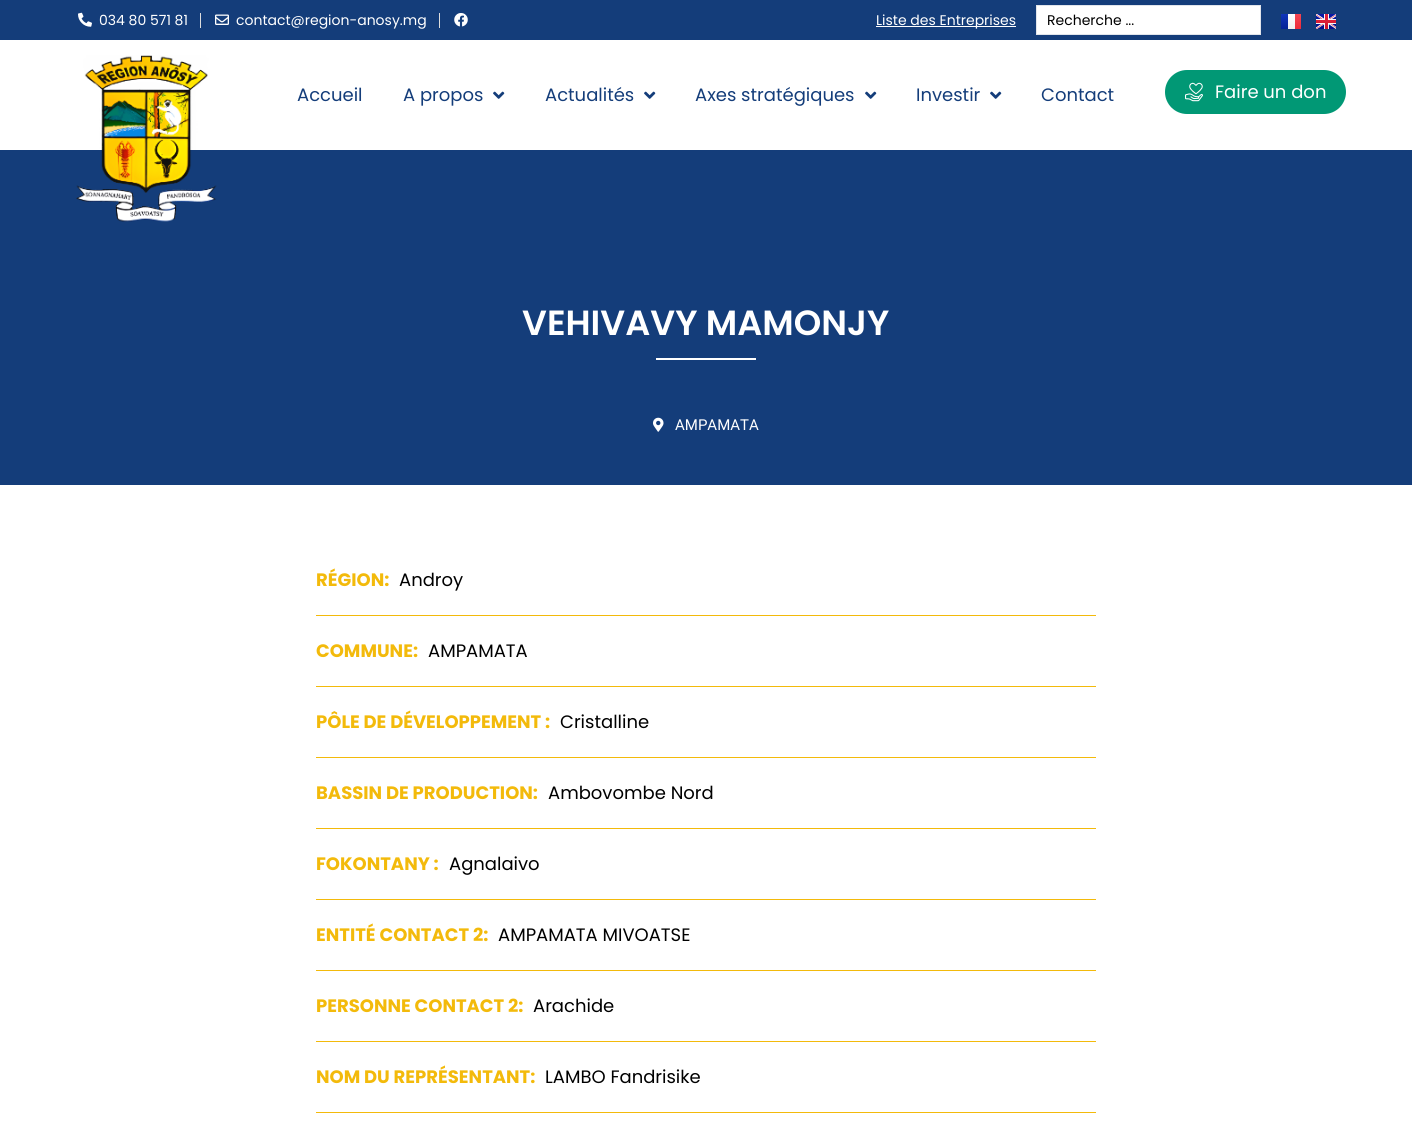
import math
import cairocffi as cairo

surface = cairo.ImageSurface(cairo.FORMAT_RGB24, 1412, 1123)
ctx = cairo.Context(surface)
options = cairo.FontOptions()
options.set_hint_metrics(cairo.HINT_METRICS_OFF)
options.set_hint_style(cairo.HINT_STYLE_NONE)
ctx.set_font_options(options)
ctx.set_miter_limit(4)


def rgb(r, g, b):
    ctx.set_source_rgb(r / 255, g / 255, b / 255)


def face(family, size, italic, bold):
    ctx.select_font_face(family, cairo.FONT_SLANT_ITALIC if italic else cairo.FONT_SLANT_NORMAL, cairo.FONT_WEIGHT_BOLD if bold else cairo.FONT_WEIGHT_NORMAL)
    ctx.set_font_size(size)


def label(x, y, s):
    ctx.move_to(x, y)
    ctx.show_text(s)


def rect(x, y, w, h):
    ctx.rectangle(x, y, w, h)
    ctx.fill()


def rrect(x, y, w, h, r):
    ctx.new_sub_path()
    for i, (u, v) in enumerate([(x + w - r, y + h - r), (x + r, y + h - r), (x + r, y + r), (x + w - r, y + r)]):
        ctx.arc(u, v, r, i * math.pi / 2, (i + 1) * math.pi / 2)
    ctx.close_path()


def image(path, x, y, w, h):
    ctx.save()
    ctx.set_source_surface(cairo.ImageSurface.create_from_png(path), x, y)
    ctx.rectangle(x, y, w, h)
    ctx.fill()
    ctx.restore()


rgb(255, 255, 255)
ctx.paint()
rgb(20, 61, 122)
rect(0, 0, 1412, 40)
image('image0.png', 78, 12, 14, 15)
face('Poppins', 14, 0, 0)
rgb(255, 255, 255)
label(99, 25, '034 80 571 81')
rgb(221, 221, 221)
rect(200, 13, 1, 15)
image('image1.png', 215, 14, 14, 11)
rgb(255, 255, 255)
label(236, 25, 'contact@region-anosy.mg')
rgb(221, 221, 221)
rect(439, 13, 1, 15)
image('image2.png', 454, 13, 14, 14)
rgb(255, 255, 255)
rect(876, 26, 140, 1)
label(876, 25, 'Liste des Entreprises')
ctx.rectangle(1036.5, 5.5, 224, 29)
ctx.fill_preserve()
rgb(225, 229, 235)
ctx.set_line_width(1)
ctx.stroke()
rgb(0, 0, 0)
label(1047, 25, 'Recherche ...')
gradient = cairo.LinearGradient(1285, 14, 1285, 29)
gradient.add_color_stop_rgba(0, 0.063, 0.208, 0.733, 1)
gradient.add_color_stop_rgba(1, 0.016, 0.137, 0.588, 1)
ctx.set_source(gradient)
rect(1281, 14, 7, 15)
gradient = cairo.LinearGradient(1292, 14, 1292, 29)
gradient.add_color_stop_rgba(0, 1, 1, 1, 1)
gradient.add_color_stop_rgba(1, 0.941, 0.941, 0.941, 1)
ctx.set_source(gradient)
rect(1288, 14, 7, 15)
gradient = cairo.LinearGradient(1297, 14, 1297, 29)
gradient.add_color_stop_rgba(0, 0.957, 0.275, 0.325, 1)
gradient.add_color_stop_rgba(1, 0.933, 0.165, 0.224, 1)
ctx.set_source(gradient)
rect(1295, 14, 6, 15)
image('image3.png', 1316, 14, 20, 15)
face('Poppins', 18, 0, 0)
rgb(20, 61, 122)
label(297, 101, 'Accueil')
label(403, 101, 'A propos')
image('image4.png', 493, 91, 12, 8)
label(545, 101, 'Actualités')
image('image4.png', 644, 91, 12, 8)
label(695, 101, 'Axes stratégiques')
image('image4.png', 865, 91, 12, 8)
label(916, 101, 'Investir')
image('image4.png', 990, 91, 12, 8)
label(1041, 101, 'Contact')
rect(0, 150, 1412, 335)
image('image5.png', 76, 55, 141, 167)
rgb(1, 152, 117)
rrect(1165, 70, 181, 44, 22)
ctx.fill()
image('image6.png', 1185, 82, 18, 20)
rgb(255, 255, 255)
label(1215, 98, 'Faire un don')
face('Poppins SemiBold', 35, 0, 0)
label(522, 335, 'VEHIVAVY MAMONJY')
rect(656, 358, 100, 2)
image('image7.png', 653, 417, 11, 15)
face('Roboto', 15, 0, 0)
label(675, 430, 'AMPAMATA')
rgb(243, 186, 11)
rect(316, 615, 780, 1)
face('Poppins', 18, 0, 1)
label(316, 586, 'RÉGION:')
face('Poppins', 18, 0, 0)
rgb(0, 0, 0)
label(399, 586, 'Androy')
rgb(243, 186, 11)
rect(316, 686, 780, 1)
face('Poppins', 18, 0, 1)
label(316, 657, 'COMMUNE:')
face('Poppins', 18, 0, 0)
rgb(0, 0, 0)
label(428, 657, 'AMPAMATA')
rgb(243, 186, 11)
rect(316, 757, 780, 1)
face('Poppins', 18, 0, 1)
label(316, 728, 'PÔLE DE DÉVELOPPEMENT :')
face('Poppins', 18, 0, 0)
rgb(0, 0, 0)
label(560, 728, 'Cristalline')
rgb(243, 186, 11)
rect(316, 828, 780, 1)
face('Poppins', 18, 0, 1)
label(316, 799, 'BASSIN DE PRODUCTION:')
face('Poppins', 18, 0, 0)
rgb(0, 0, 0)
label(548, 799, 'Ambovombe Nord')
rgb(243, 186, 11)
rect(316, 899, 780, 1)
face('Poppins', 18, 0, 1)
label(316, 870, 'FOKONTANY :')
face('Poppins', 18, 0, 0)
rgb(0, 0, 0)
label(449, 870, 'Agnalaivo')
rgb(243, 186, 11)
rect(316, 970, 780, 1)
face('Poppins', 18, 0, 1)
label(316, 941, 'ENTITÉ CONTACT 2:')
face('Poppins', 18, 0, 0)
rgb(0, 0, 0)
label(498, 941, 'AMPAMATA MIVOATSE')
rgb(243, 186, 11)
rect(316, 1041, 780, 1)
face('Poppins', 18, 0, 1)
label(316, 1012, 'PERSONNE CONTACT 2:')
face('Poppins', 18, 0, 0)
rgb(0, 0, 0)
label(533, 1012, 'Arachide')
rgb(243, 186, 11)
rect(316, 1112, 780, 1)
face('Poppins', 18, 0, 1)
label(316, 1083, 'NOM DU REPRÉSENTANT:')
face('Poppins', 18, 0, 0)
rgb(0, 0, 0)
label(545, 1083, 'LAMBO Fandrisike')
surface.write_to_png('render.png')
